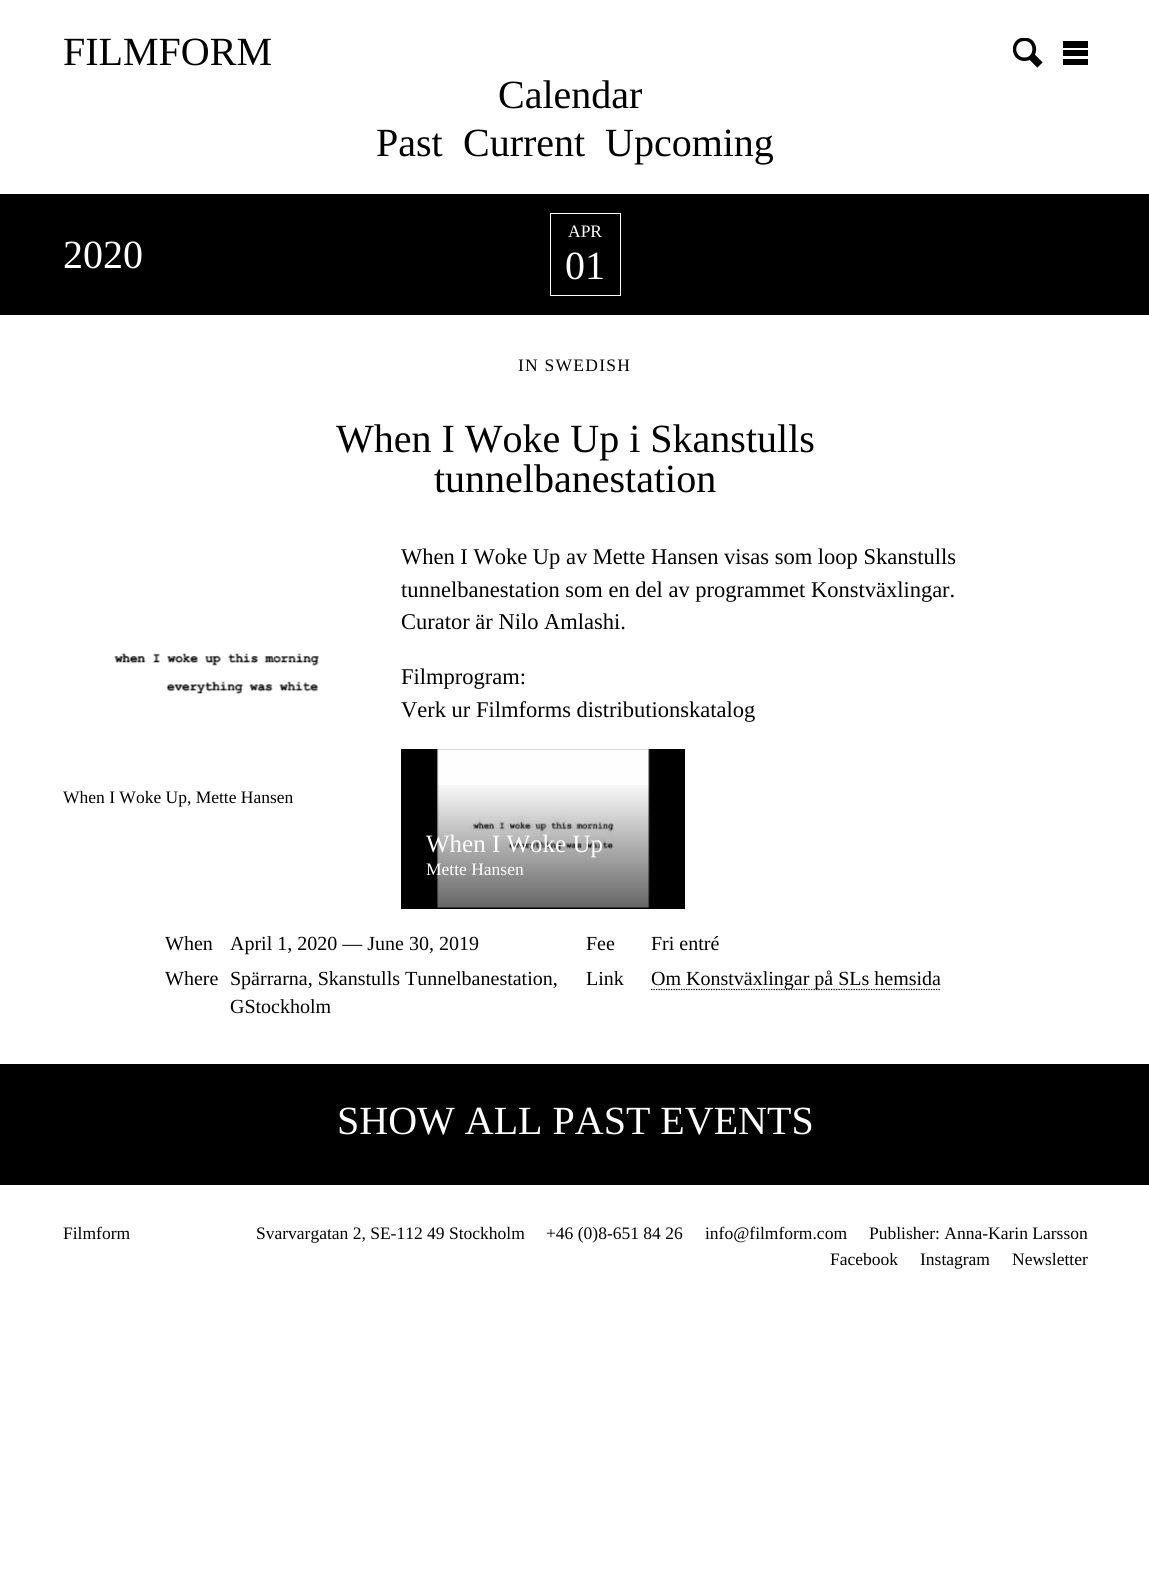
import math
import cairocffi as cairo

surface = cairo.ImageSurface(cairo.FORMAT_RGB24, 1149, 1596)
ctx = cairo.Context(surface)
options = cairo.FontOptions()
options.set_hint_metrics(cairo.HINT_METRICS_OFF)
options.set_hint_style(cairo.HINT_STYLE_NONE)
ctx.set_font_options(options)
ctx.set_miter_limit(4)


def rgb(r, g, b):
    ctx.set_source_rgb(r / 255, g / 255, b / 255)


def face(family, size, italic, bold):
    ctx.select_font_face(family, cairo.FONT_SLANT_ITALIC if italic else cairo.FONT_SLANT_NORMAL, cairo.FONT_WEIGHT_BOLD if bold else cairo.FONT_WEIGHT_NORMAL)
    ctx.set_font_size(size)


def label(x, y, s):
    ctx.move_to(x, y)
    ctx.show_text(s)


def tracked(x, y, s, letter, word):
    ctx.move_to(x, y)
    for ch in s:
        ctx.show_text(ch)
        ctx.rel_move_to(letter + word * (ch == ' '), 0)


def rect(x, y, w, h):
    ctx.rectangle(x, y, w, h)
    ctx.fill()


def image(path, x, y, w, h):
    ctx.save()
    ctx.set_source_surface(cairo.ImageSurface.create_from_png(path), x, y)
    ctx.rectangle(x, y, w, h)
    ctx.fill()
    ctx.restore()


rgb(255, 255, 255)
ctx.paint()
face('Liberation Serif', 40, 0, 0)
rgb(0, 0, 0)
label(63, 65, 'FILMFORM')
ctx.save()
ctx.rectangle(1013, 38, 30, 30)
ctx.clip()
ctx.new_path()
ctx.move_to(1024.5, 41)
ctx.curve_to(1035, 41, 1035, 57.5, 1024.5, 57.5)
ctx.curve_to(1013.5, 57.5, 1013.5, 41, 1024.5, 41)
ctx.move_to(1024.5, 37.5)
ctx.curve_to(1009, 37.5, 1009, 61, 1024.5, 61)
ctx.curve_to(1040, 61, 1040, 37.5, 1024.5, 37.5)
ctx.close_path()
ctx.fill()
ctx.restore()
ctx.new_path()
ctx.move_to(1030.5, 55.5)
ctx.line_to(1040, 65)
ctx.set_line_width(7.5)
ctx.stroke()
rect(1063, 41, 25, 7)
rect(1063, 50, 25, 6)
rect(1063, 59, 25, 6)
label(498, 108, 'Calendar')
label(376, 156, 'Past')
label(463, 156, 'Current')
label(605, 156, 'Upcoming')
rect(0, 194, 1149, 121)
rgb(255, 255, 255)
label(63, 268, '2020')
ctx.rectangle(550.5, 213.5, 70, 82)
ctx.set_line_width(1)
ctx.stroke()
face('Liberation Serif', 17.5, 0, 0)
label(568, 237, 'APR')
face('Liberation Serif', 40, 0, 0)
label(565, 279, '01')
face('Liberation Serif', 17.5, 0, 0)
rgb(0, 0, 0)
tracked(518, 371, 'IN SWEDISH', 1.25, 0)
face('Liberation Serif', 40, 0, 0)
label(336, 452, 'When I Woke Up i Skanstulls')
label(434, 492, 'tunnelbanestation')
image('image0.png', 114, 653, 205, 41)
face('Liberation Serif', 17.5, 0, 0)
label(63, 803, 'When I Woke Up, Mette Hansen')
face('Liberation Serif', 22.5, 0, 0)
label(401, 564, 'When I Woke Up av Mette Hansen visas som loop Skanstulls')
label(401, 597, 'tunnelbanestation som en del av programmet Konstväxlingar.')
label(401, 629, 'Curator är Nilo Amlashi.')
label(401, 684, 'Filmprogram:')
label(401, 717, 'Verk ur Filmforms distributionskatalog')
rect(401, 749, 284, 160)
image('image1.png', 437, 749, 213, 159)
gradient = cairo.LinearGradient(543, 780, 543, 908)
gradient.add_color_stop_rgba(0, 0, 0, 0, 0)
gradient.add_color_stop_rgba(1, 0, 0, 0, 0.6)
ctx.set_source(gradient)
rect(437, 785, 213, 123)
face('Liberation Serif', 25, 0, 0)
rgb(255, 255, 255)
label(426, 852, 'When I Woke Up')
face('Liberation Serif', 17.5, 0, 0)
label(426, 875, 'Mette Hansen')
face('Liberation Serif', 20, 0, 0)
rgb(0, 0, 0)
label(165, 950, 'When')
label(230, 950, 'April 1, 2020 — June 30, 2019')
label(586, 950, 'Fee')
label(651, 950, 'Fri entré')
label(165, 985, 'Where')
label(230, 985, 'Spärrarna, Skanstulls Tunnelbanestation,')
label(230, 1013, 'GStockholm')
label(586, 985, 'Link')
ctx.new_path()
ctx.move_to(651, 989.5)
ctx.line_to(941, 989.5)
ctx.set_line_width(1.2)
ctx.set_dash([1.25, 1.25])
ctx.stroke()
label(651, 985, 'Om Konstväxlingar på SLs hemsida')
rect(0, 1064, 1149, 121)
face('Liberation Serif', 40, 0, 0)
rgb(255, 255, 255)
label(337, 1134, 'SHOW ALL PAST EVENTS')
face('Liberation Serif', 17.5, 0, 0)
rgb(0, 0, 0)
label(63, 1239, 'Filmform')
label(256, 1239, 'Svarvargatan 2, SE-112 49 Stockholm')
label(546, 1239, '+46 (0)8-651 84 26')
label(705, 1239, 'info@filmform.com')
label(869, 1239, 'Publisher: Anna-Karin Larsson')
label(830, 1265, 'Facebook')
label(920, 1265, 'Instagram')
label(1012, 1265, 'Newsletter')
surface.write_to_png('render.png')
